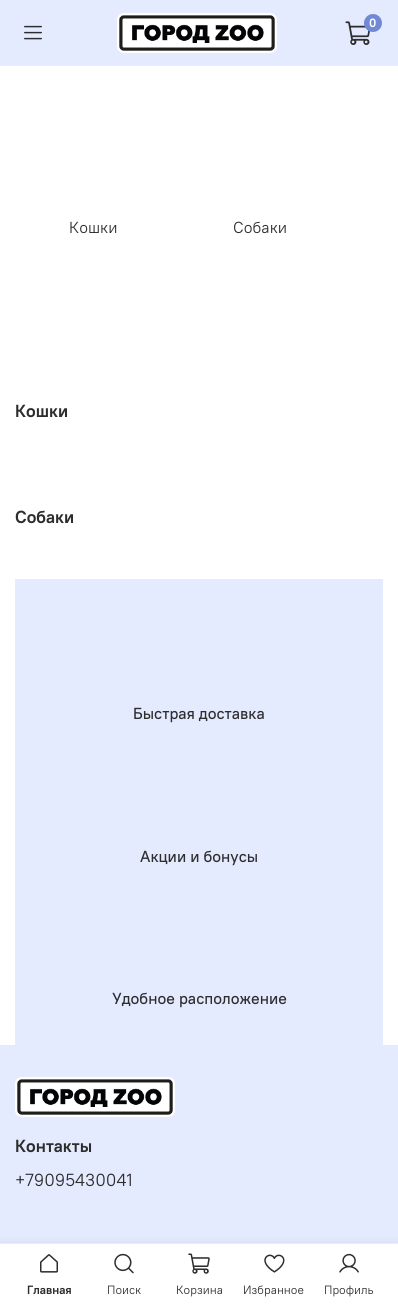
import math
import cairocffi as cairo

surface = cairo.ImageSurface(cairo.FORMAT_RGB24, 398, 1305)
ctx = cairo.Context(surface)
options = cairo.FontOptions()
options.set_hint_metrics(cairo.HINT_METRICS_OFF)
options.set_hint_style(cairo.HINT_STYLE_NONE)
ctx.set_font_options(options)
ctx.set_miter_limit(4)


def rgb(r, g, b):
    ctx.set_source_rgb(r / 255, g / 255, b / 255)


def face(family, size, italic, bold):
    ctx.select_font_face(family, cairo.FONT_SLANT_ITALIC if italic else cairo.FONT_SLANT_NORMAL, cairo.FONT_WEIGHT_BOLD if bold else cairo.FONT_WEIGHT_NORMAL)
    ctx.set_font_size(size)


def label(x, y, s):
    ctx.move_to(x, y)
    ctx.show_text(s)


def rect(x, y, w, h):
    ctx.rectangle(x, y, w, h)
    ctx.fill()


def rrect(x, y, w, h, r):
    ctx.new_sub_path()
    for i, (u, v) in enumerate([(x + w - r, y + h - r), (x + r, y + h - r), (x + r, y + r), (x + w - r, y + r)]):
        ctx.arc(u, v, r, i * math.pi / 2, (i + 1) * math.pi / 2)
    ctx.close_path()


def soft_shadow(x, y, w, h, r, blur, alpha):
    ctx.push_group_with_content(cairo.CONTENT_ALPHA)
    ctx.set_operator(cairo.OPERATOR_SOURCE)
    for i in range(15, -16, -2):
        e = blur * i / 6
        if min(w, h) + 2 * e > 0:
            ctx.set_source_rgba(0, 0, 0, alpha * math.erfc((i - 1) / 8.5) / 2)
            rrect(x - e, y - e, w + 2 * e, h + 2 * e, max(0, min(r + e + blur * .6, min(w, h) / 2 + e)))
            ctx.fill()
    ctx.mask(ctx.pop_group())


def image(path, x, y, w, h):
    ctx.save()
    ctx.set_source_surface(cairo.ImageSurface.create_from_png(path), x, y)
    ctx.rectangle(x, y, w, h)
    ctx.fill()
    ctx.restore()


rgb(255, 255, 255)
ctx.paint()
rgb(229, 235, 255)
rect(0, 0, 398, 66)
image('image0.png', 117, 13, 160, 40)
image('image1.png', 345, 21, 25, 24)
rgb(113, 136, 212)
ctx.arc(373, 23, 9, 0, 2 * math.pi)
ctx.fill()
face('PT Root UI', 12, 0, 1)
rgb(255, 255, 255)
label(369, 27, '0')
image('image2.png', 24, 25, 18, 15)
face('PT Root UI', 16, 0, 0)
rgb(45, 45, 45)
label(69, 233, 'Кошки')
label(233, 233, 'Собаки')
face('PT Root UI', 17.5, 0, 1)
label(15, 417, 'Кошки')
label(15, 523, 'Собаки')
rgb(229, 235, 255)
rect(15, 579, 368, 466)
face('PT Root UI Medium', 16, 0, 0)
rgb(45, 45, 45)
label(133, 719, 'Быстрая доставка')
label(140, 862, 'Акции и бонусы')
label(112, 1004, 'Удобное расположение')
rgb(229, 235, 255)
rect(0, 1045, 398, 198)
image('image3.png', 15, 1077, 160, 40)
face('PT Root UI', 17.5, 0, 1)
rgb(45, 45, 45)
label(15, 1152, 'Контакты')
face('PT Root UI', 17.5, 0, 0)
label(15, 1186, '+79095430041')
rgb(0, 0, 0)
soft_shadow(0, 1245, 398, 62, 0, 5, 0.12)
rgb(255, 255, 255)
rect(0, 1244, 398, 61)
rgb(237, 237, 237)
rect(0, 1243, 398, 1)
image('image4.png', 40, 1254, 18, 19)
face('PT Root UI', 12, 0, 1)
rgb(45, 45, 45)
label(27, 1294, 'Главная')
image('image5.png', 114, 1253, 20, 21)
face('PT Root UI', 12, 0, 0)
label(107, 1294, 'Поиск')
image('image6.png', 188, 1253, 22, 21)
label(176, 1294, 'Корзина')
image('image7.png', 264, 1254, 21, 19)
label(243, 1294, 'Избранное')
image('image8.png', 339, 1253, 20, 20)
label(324, 1294, 'Профиль')
surface.write_to_png('render.png')
